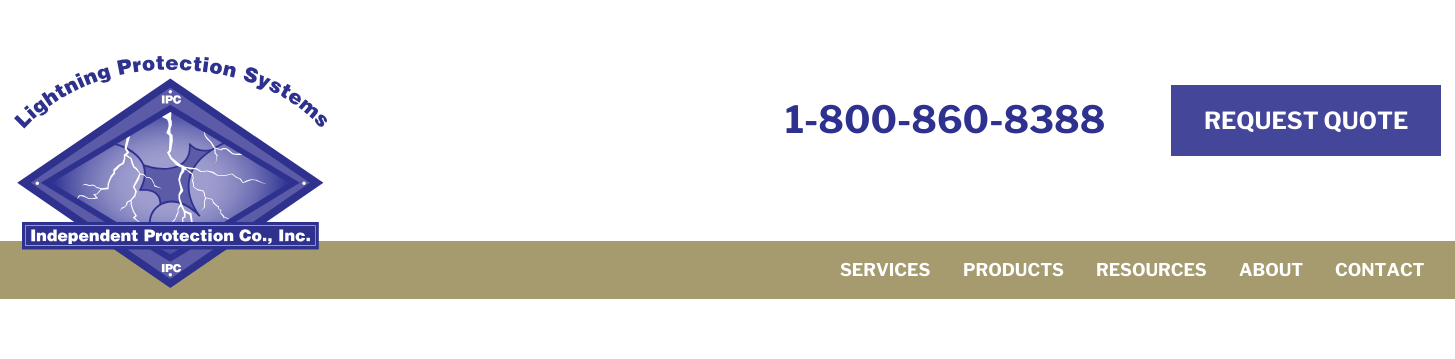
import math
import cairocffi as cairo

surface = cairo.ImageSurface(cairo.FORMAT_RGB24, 1455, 359)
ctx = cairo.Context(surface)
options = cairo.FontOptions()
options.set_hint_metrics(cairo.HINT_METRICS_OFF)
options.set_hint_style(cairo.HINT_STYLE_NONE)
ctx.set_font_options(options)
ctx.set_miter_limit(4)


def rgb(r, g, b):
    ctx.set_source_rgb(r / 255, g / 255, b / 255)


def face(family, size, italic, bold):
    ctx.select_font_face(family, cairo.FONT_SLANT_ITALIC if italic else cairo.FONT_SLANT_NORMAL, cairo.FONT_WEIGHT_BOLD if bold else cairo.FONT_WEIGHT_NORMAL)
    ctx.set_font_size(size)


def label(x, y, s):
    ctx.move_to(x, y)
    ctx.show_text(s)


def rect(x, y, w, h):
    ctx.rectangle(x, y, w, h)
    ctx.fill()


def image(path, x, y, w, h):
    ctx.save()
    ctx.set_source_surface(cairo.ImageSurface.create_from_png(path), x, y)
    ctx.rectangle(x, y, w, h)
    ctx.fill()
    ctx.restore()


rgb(255, 255, 255)
ctx.paint()
rgb(165, 155, 111)
rect(0, 241, 1455, 58)
image('image0.png', 14, 56, 313, 232)
face('Libre Franklin', 37.5, 0, 1)
rgb(46, 49, 142)
label(785, 133, '1-800-860-8388')
rgb(67, 70, 153)
rect(1171, 85, 270, 71)
face('Libre Franklin', 23.5, 0, 1)
rgb(255, 255, 255)
label(1204, 129, 'REQUEST QUOTE')
face('Libre Franklin', 17.5, 0, 1)
label(840, 276, 'SERVICES')
label(963, 276, 'PRODUCTS')
label(1096, 276, 'RESOURCES')
label(1239, 276, 'ABOUT')
label(1335, 276, 'CONTACT')
surface.write_to_png('render.png')
